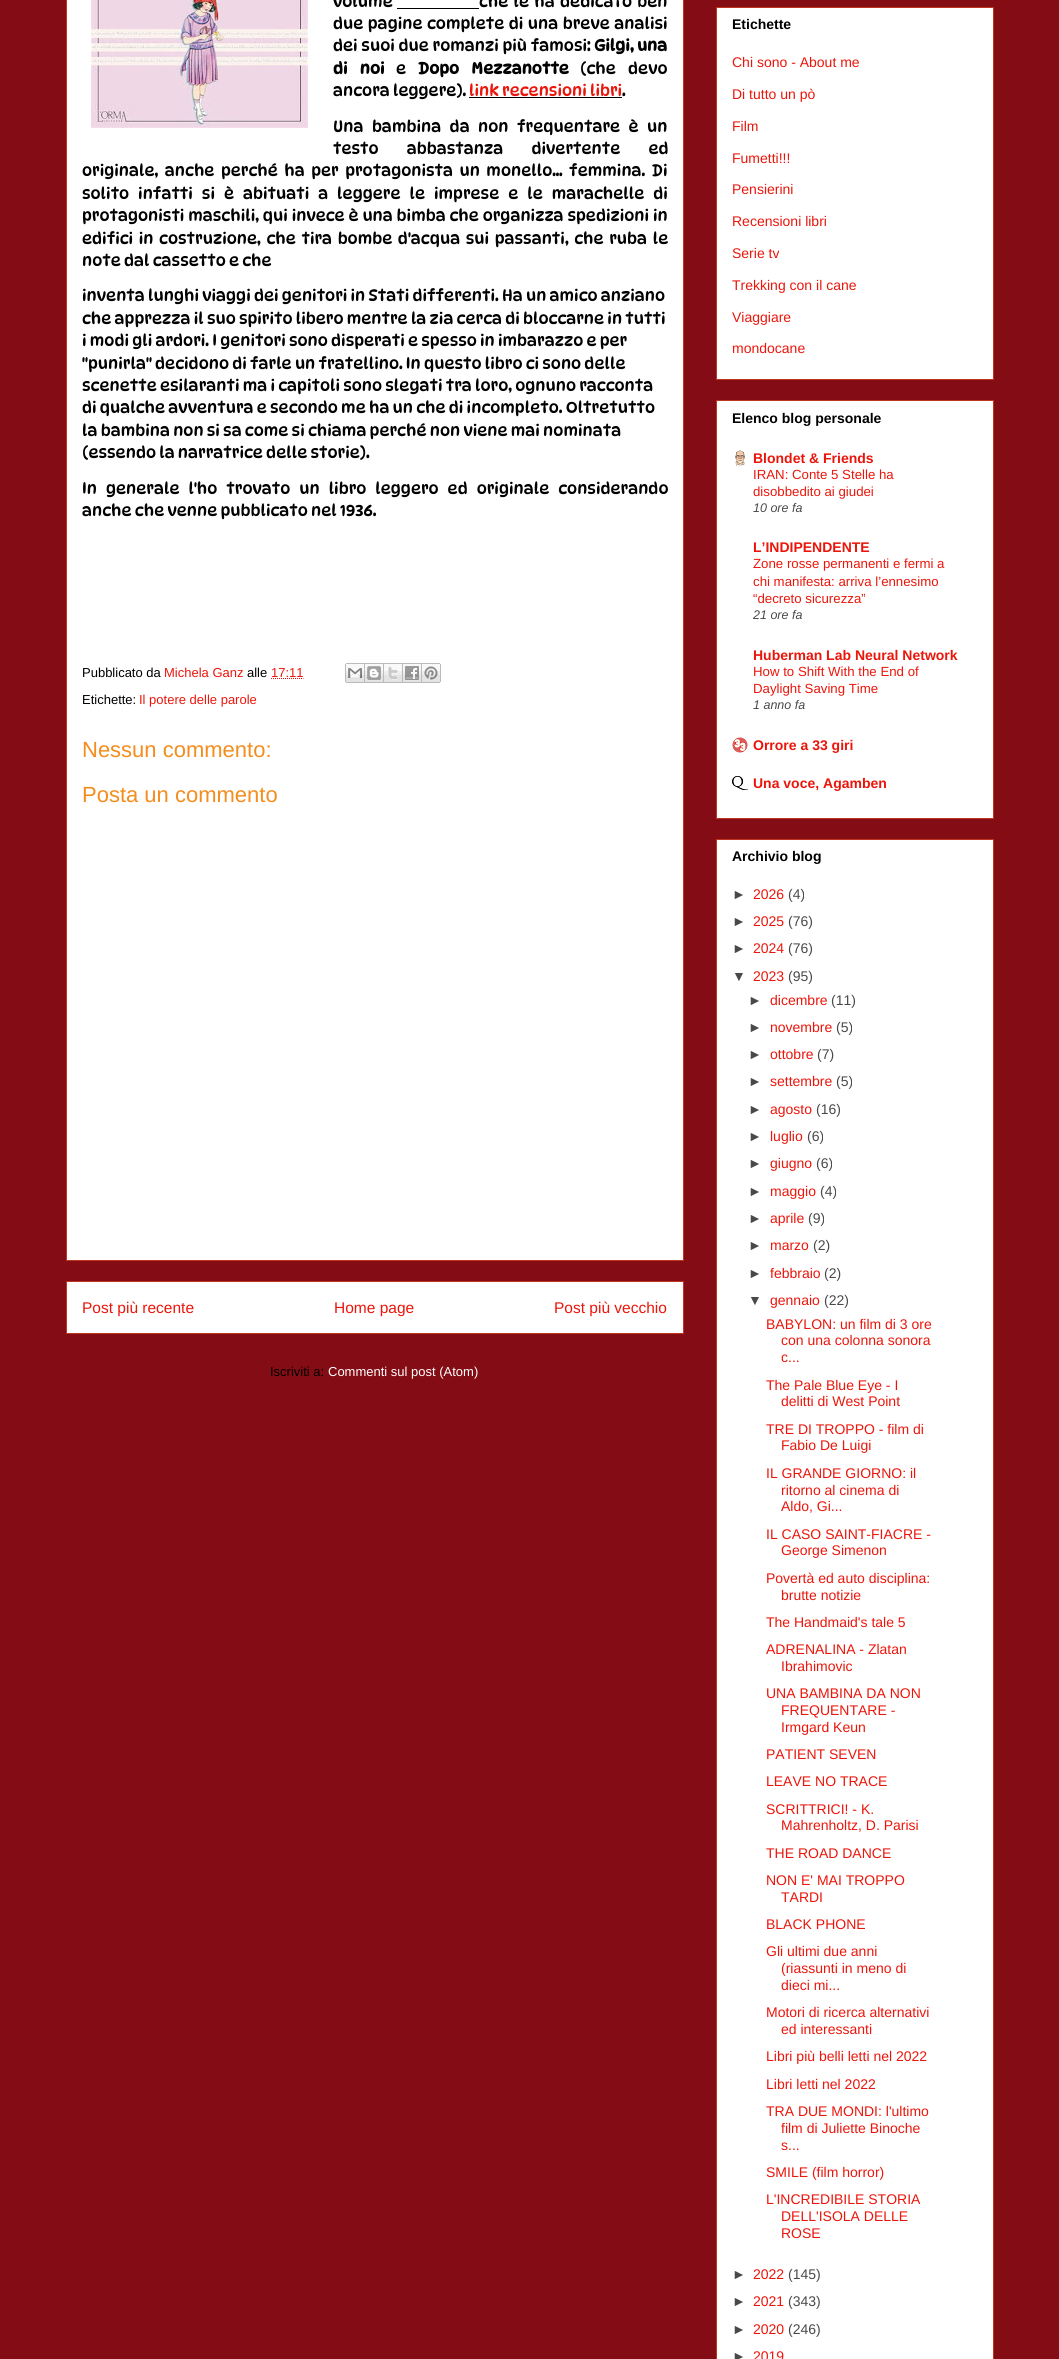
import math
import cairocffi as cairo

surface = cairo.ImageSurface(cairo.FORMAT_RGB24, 1059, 2359)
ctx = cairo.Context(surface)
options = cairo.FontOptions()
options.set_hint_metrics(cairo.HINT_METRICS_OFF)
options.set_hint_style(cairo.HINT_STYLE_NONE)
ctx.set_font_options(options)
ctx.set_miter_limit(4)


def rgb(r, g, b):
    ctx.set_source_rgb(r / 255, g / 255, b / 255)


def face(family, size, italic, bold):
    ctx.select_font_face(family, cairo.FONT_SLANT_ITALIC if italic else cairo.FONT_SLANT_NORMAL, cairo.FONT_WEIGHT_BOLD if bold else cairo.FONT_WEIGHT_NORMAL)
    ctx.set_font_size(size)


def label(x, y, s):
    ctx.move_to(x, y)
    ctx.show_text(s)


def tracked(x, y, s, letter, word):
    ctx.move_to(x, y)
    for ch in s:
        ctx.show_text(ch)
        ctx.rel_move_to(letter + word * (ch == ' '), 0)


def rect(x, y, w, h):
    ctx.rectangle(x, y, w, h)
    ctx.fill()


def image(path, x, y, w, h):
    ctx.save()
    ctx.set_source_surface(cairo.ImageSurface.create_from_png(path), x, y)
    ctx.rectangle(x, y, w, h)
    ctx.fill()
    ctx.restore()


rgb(132, 12, 21)
ctx.paint()
rgb(255, 255, 255)
ctx.rectangle(66.5, -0.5, 617, 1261)
ctx.fill_preserve()
rgb(193, 53, 30)
ctx.set_line_width(1)
ctx.stroke()
image('image0.png', 91, 0, 217, 128)
face('DynaPuff', 16, 0, 0)
rgb(0, 0, 0)
label(333, 7, 'volume')
tracked(479, 7, 'che le ha dedicato ben', 0, 2)
rect(397, 8, 82, 1)
tracked(333, 29, 'due pagine complete di una breve analisi', 0, 1.25)
tracked(333, 51, 'dei suoi due romanzi più famosi:', 0, 0.5)
face('DynaPuff', 16, 0, 1)
label(594, 51, 'Gilgi, una')
tracked(333, 74, 'di noi', 0, 9)
face('DynaPuff', 16, 0, 0)
label(396, 74, 'e')
face('DynaPuff', 16, 0, 1)
tracked(418, 74, 'Dopo Mezzanotte', 0, 9)
face('DynaPuff', 16, 0, 0)
tracked(580, 74, '(che devo', 0, 9)
label(333, 96, 'ancora leggere).')
rgb(235, 22, 11)
label(469, 96, 'link recensioni libri')
rgb(0, 0, 0)
label(622, 96, '.')
rect(469, 97, 153, 1)
tracked(333, 132, 'Una bambina da non frequentare è un', 0, 5.25)
tracked(333, 154, 'testo abbastanza divertente ed', 0, 25)
tracked(82, 176, 'originale, anche perché ha per protagonista un monello… femmina. Di', 0, 3.25)
tracked(82, 199, 'solito infatti si è abituati a leggere le imprese e le marachelle di', 0, 5.75)
tracked(82, 221, 'protagonisti maschili, qui invece è una bimba che organizza spedizioni in', 0, 0.6)
tracked(82, 244, 'edifici in costruzione, che tira bombe d\'acqua sui passanti, che ruba le', 0, 2.4)
label(82, 266, 'note dal cassetto e che')
label(82, 301, 'inventa lunghi viaggi dei genitori in Stati differenti. Ha un amico anziano')
label(82, 324, 'che apprezza il suo spirito libero mentre la zia cerca di bloccarne in tutti')
label(82, 346, 'i modi gli ardori. I genitori sono disperati e spesso in imbarazzo e per')
label(82, 369, '"punirla" decidono di farle un fratellino. In questo libro ci sono delle')
label(82, 391, 'scenette esilaranti ma i capitoli sono slegati tra loro, ognuno racconta')
label(82, 413, 'di qualche avventura e secondo me ha un che di incompleto. Oltretutto')
label(82, 436, 'la bambina non si sa come si chiama perché non viene mai nominata')
label(82, 458, '(essendo la narratrice delle storie).')
tracked(82, 494, 'In generale l\'ho trovato un libro leggero ed originale considerando', 0, 5.75)
label(82, 516, 'anche che venne pubblicato nel 1936.')
face('Liberation Sans', 13, 0, 0)
label(82, 677, 'Pubblicato da')
rgb(235, 22, 11)
label(164, 677, 'Michela Ganz')
rgb(0, 0, 0)
label(247, 677, 'alle')
rgb(235, 22, 11)
label(271, 677, '17:11')
ctx.new_path()
ctx.move_to(271, 678.5)
ctx.line_to(303.5, 678.5)
ctx.set_dash([1, 1])
ctx.stroke()
image('image1.png', 345, 663, 20, 20)
image('image2.png', 365, 663, 19, 20)
image('image3.png', 384, 663, 19, 20)
image('image4.png', 403, 663, 19, 20)
image('image5.png', 422, 663, 19, 20)
rgb(0, 0, 0)
label(82, 704, 'Etichette:')
rgb(235, 22, 11)
label(139, 704, 'Il potere delle parole')
face('Liberation Sans', 22, 0, 0)
rgb(244, 141, 29)
label(82, 757, 'Nessun commento:')
label(82, 802, 'Posta un commento')
rgb(255, 255, 255)
ctx.rectangle(66.5, 1281.5, 617, 52)
ctx.fill_preserve()
rgb(193, 53, 30)
ctx.set_dash([])
ctx.stroke()
face('Liberation Sans', 15.5, 0, 0)
rgb(235, 22, 11)
label(82, 1313, 'Post più recente')
label(334, 1313, 'Home page')
label(554, 1313, 'Post più vecchio')
face('Liberation Sans', 13, 0, 0)
rgb(0, 0, 0)
label(270, 1376, 'Iscriviti a:')
rgb(255, 255, 255)
label(328, 1376, 'Commenti sul post (Atom)')
ctx.rectangle(716.5, 7.5, 277, 372)
ctx.fill_preserve()
rgb(193, 53, 30)
ctx.stroke()
face('Liberation Sans', 14, 0, 1)
rgb(0, 0, 0)
label(732, 29, 'Etichette')
face('Liberation Sans', 14, 0, 0)
rgb(235, 22, 11)
label(732, 67, 'Chi sono - About me')
label(732, 99, 'Di tutto un pò')
label(732, 131, 'Film')
label(732, 163, 'Fumetti!!!')
label(732, 194, 'Pensierini')
label(732, 226, 'Recensioni libri')
label(732, 258, 'Serie tv')
label(732, 290, 'Trekking con il cane')
label(732, 322, 'Viaggiare')
label(732, 353, 'mondocane')
rgb(255, 255, 255)
ctx.rectangle(716.5, 400.5, 277, 418)
ctx.fill_preserve()
rgb(193, 53, 30)
ctx.stroke()
face('Liberation Sans', 14, 0, 1)
rgb(0, 0, 0)
label(732, 423, 'Elenco blog personale')
image('image6.png', 735, 450, 10, 16)
rgb(235, 22, 11)
label(753, 463, 'Blondet & Friends')
face('Liberation Sans', 13.25, 0, 0)
label(753, 479, 'IRAN: Conte 5 Stelle ha')
label(753, 496, 'disobbedito ai giudei')
face('Liberation Sans', 12.5, 1, 0)
rgb(73, 73, 73)
label(753, 512, '10 ore fa')
face('Liberation Sans', 14, 0, 1)
rgb(235, 22, 11)
label(753, 552, 'L’INDIPENDENTE')
face('Liberation Sans', 13.25, 0, 0)
label(753, 568, 'Zone rosse permanenti e fermi a')
label(753, 586, 'chi manifesta: arriva l’ennesimo')
label(753, 603, '“decreto sicurezza”')
face('Liberation Sans', 12.5, 1, 0)
rgb(73, 73, 73)
label(753, 619, '21 ore fa')
face('Liberation Sans', 14, 0, 1)
rgb(235, 22, 11)
label(753, 660, 'Huberman Lab Neural Network')
face('Liberation Sans', 13.25, 0, 0)
label(753, 676, 'How to Shift With the End of')
label(753, 693, 'Daylight Saving Time')
face('Liberation Sans', 12.5, 1, 0)
rgb(73, 73, 73)
label(753, 709, '1 anno fa')
image('image7.png', 732, 737, 16, 16)
face('Liberation Sans', 14, 0, 1)
rgb(235, 22, 11)
label(753, 750, 'Orrore a 33 giri')
image('image8.png', 732, 776, 16, 14)
label(753, 788, 'Una voce, Agamben')
rgb(255, 255, 255)
ctx.rectangle(716.5, 839.5, 277, 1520)
ctx.fill_preserve()
rgb(193, 53, 30)
ctx.stroke()
rgb(0, 0, 0)
label(732, 861, 'Archivio blog')
face('Liberation Sans', 14, 0, 0)
rgb(73, 73, 73)
label(732, 899, '►')
rgb(235, 22, 11)
label(753, 899, '2026')
rgb(73, 73, 73)
label(788, 899, '(4)')
label(732, 926, '►')
rgb(235, 22, 11)
label(753, 926, '2025')
rgb(73, 73, 73)
label(788, 926, '(76)')
label(732, 953, '►')
rgb(235, 22, 11)
label(753, 953, '2024')
rgb(73, 73, 73)
label(788, 953, '(76)')
label(732, 981, '▼')
rgb(235, 22, 11)
label(753, 981, '2023')
rgb(73, 73, 73)
label(788, 981, '(95)')
label(748, 1005, '►')
rgb(235, 22, 11)
label(770, 1005, 'dicembre')
rgb(73, 73, 73)
label(831, 1005, '(11)')
label(748, 1032, '►')
rgb(235, 22, 11)
label(770, 1032, 'novembre')
rgb(73, 73, 73)
label(836, 1032, '(5)')
label(748, 1059, '►')
rgb(235, 22, 11)
label(770, 1059, 'ottobre')
rgb(73, 73, 73)
label(817, 1059, '(7)')
label(748, 1086, '►')
rgb(235, 22, 11)
label(770, 1086, 'settembre')
rgb(73, 73, 73)
label(836, 1086, '(5)')
label(748, 1114, '►')
rgb(235, 22, 11)
label(770, 1114, 'agosto')
rgb(73, 73, 73)
label(816, 1114, '(16)')
label(748, 1141, '►')
rgb(235, 22, 11)
label(770, 1141, 'luglio')
rgb(73, 73, 73)
label(807, 1141, '(6)')
label(748, 1168, '►')
rgb(235, 22, 11)
label(770, 1168, 'giugno')
rgb(73, 73, 73)
label(816, 1168, '(6)')
label(748, 1196, '►')
rgb(235, 22, 11)
label(770, 1196, 'maggio')
rgb(73, 73, 73)
label(820, 1196, '(4)')
label(748, 1223, '►')
rgb(235, 22, 11)
label(770, 1223, 'aprile')
rgb(73, 73, 73)
label(808, 1223, '(9)')
label(748, 1250, '►')
rgb(235, 22, 11)
label(770, 1250, 'marzo')
rgb(73, 73, 73)
label(813, 1250, '(2)')
label(748, 1278, '►')
rgb(235, 22, 11)
label(770, 1278, 'febbraio')
rgb(73, 73, 73)
label(824, 1278, '(2)')
label(748, 1305, '▼')
rgb(235, 22, 11)
label(770, 1305, 'gennaio')
rgb(73, 73, 73)
label(824, 1305, '(22)')
rgb(235, 22, 11)
label(766, 1329, 'BABYLON: un film di 3 ore')
label(781, 1345, 'con una colonna sonora')
label(781, 1362, 'c...')
label(766, 1390, 'The Pale Blue Eye - I')
label(781, 1406, 'delitti di West Point')
label(766, 1434, 'TRE DI TROPPO - film di')
label(781, 1450, 'Fabio De Luigi')
label(766, 1478, 'IL GRANDE GIORNO: il')
label(781, 1495, 'ritorno al cinema di')
label(781, 1511, 'Aldo, Gi...')
label(766, 1539, 'IL CASO SAINT-FIACRE -')
label(781, 1555, 'George Simenon')
label(766, 1583, 'Povertà ed auto disciplina:')
label(781, 1600, 'brutte notizie')
label(766, 1627, 'The Handmaid\'s tale 5')
label(766, 1654, 'ADRENALINA - Zlatan')
label(781, 1671, 'Ibrahimovic')
label(766, 1698, 'UNA BAMBINA DA NON')
label(781, 1715, 'FREQUENTARE -')
label(781, 1732, 'Irmgard Keun')
label(766, 1759, 'PATIENT SEVEN')
label(766, 1786, 'LEAVE NO TRACE')
label(766, 1814, 'SCRITTRICI! - K.')
label(781, 1830, 'Mahrenholtz, D. Parisi')
label(766, 1858, 'THE ROAD DANCE')
label(766, 1885, 'NON E\' MAI TROPPO')
label(781, 1902, 'TARDI')
label(766, 1929, 'BLACK PHONE')
label(766, 1956, 'Gli ultimi due anni')
label(781, 1973, '(riassunti in meno di')
label(781, 1990, 'dieci mi...')
label(766, 2017, 'Motori di ricerca alternativi')
label(781, 2034, 'ed interessanti')
label(766, 2061, 'Libri più belli letti nel 2022')
label(766, 2089, 'Libri letti nel 2022')
label(766, 2116, 'TRA DUE MONDI: l\'ultimo')
label(781, 2133, 'film di Juliette Binoche')
label(781, 2150, 's...')
label(766, 2177, 'SMILE (film horror)')
label(766, 2204, 'L\'INCREDIBILE STORIA')
label(781, 2221, 'DELL\'ISOLA DELLE')
label(781, 2238, 'ROSE')
rgb(73, 73, 73)
label(732, 2279, '►')
rgb(235, 22, 11)
label(753, 2279, '2022')
rgb(73, 73, 73)
label(788, 2279, '(145)')
label(732, 2306, '►')
rgb(235, 22, 11)
label(753, 2306, '2021')
rgb(73, 73, 73)
label(788, 2306, '(343)')
label(732, 2334, '►')
rgb(235, 22, 11)
label(753, 2334, '2020')
rgb(73, 73, 73)
label(788, 2334, '(246)')
label(732, 2361, '►')
rgb(235, 22, 11)
label(753, 2361, '2019')
surface.write_to_png('render.png')
